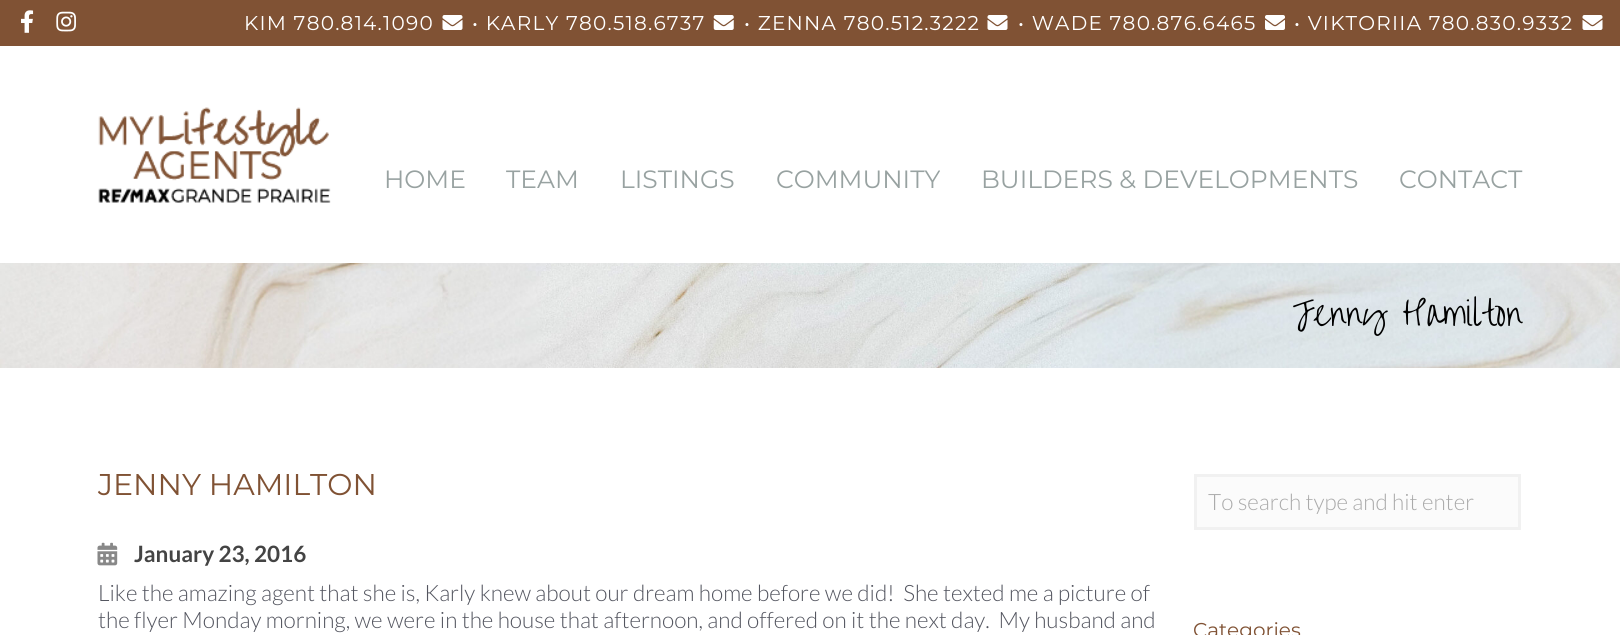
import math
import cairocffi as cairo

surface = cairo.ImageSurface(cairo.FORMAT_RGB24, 1620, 635)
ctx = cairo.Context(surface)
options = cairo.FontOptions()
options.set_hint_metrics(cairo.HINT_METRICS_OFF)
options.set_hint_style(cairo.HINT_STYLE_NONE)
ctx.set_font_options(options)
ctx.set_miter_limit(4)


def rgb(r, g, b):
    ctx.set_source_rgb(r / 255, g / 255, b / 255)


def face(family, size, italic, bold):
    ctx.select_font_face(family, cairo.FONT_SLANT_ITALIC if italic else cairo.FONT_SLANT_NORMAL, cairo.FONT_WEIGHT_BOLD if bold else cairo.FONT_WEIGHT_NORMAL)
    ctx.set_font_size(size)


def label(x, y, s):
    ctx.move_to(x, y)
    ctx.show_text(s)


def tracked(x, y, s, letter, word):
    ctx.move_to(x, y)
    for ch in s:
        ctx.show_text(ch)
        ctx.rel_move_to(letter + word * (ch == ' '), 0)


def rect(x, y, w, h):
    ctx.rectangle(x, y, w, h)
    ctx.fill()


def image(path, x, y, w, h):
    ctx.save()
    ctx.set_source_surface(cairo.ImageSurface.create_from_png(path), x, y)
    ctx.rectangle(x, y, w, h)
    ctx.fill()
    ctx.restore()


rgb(255, 255, 255)
ctx.paint()
rgb(128, 82, 52)
rect(0, 0, 1620, 46)
image('image0.png', 21, 10, 13, 23)
image('image1.png', 56, 11, 20, 21)
face('Montserrat', 20, 0, 0)
rgb(255, 255, 255)
tracked(244, 30, 'KIM 780.814.1090', 1.25, 0)
image('image2.png', 442, 15, 21, 15)
tracked(472, 30, '• KARLY 780.518.6737', 1.25, 0)
image('image3.png', 713, 15, 21, 15)
tracked(744, 30, '• ZENNA 780.512.3222', 1.25, 0)
image('image2.png', 987, 15, 21, 15)
tracked(1018, 30, '• WADE 780.876.6465', 1.25, 0)
image('image4.png', 1265, 15, 20, 15)
tracked(1294, 30, '• VIKTORIIA 780.830.9332', 1.25, 0)
image('image2.png', 1582, 15, 21, 15)
image('image5.png', 98, 107, 233, 96)
face('Montserrat', 25, 0, 0)
rgb(152, 162, 161)
label(384, 188, 'HOME')
label(506, 188, 'TEAM')
label(620, 188, 'LISTINGS')
label(776, 188, 'COMMUNITY')
label(981, 188, 'BUILDERS & DEVELOPMENTS')
label(1399, 188, 'CONTACT')
image('image6.png', 0, 263, 1620, 105)
face('Over the Rainbow', 32.5, 0, 0)
rgb(0, 0, 0)
label(1293, 326, 'Jenny Hamilton')
face('Montserrat', 30, 0, 0)
rgb(128, 82, 52)
label(98, 495, 'JENNY HAMILTON')
image('image7.png', 97, 542, 21, 24)
face('Lato', 22.5, 0, 1)
rgb(68, 68, 68)
label(134, 562, 'January 23, 2016')
face('Lato Light', 22.5, 0, 0)
rgb(83, 85, 95)
label(98, 601, 'Like the amazing agent that she is, Karly knew about our dream home before we did!  She texted me a picture of')
label(98, 628, 'the flyer Monday morning, we were in the house that afternoon, and offered on it the next day.  My husband and')
rgb(251, 251, 251)
ctx.rectangle(1195.5, 475.5, 324, 53)
ctx.fill_preserve()
rgb(241, 241, 241)
ctx.set_line_width(3)
ctx.stroke()
rgb(170, 170, 170)
label(1208, 510, 'To search type and hit enter')
face('Montserrat', 20, 0, 0)
rgb(128, 82, 52)
label(1193, 637, 'Categories')
surface.write_to_png('render.png')
